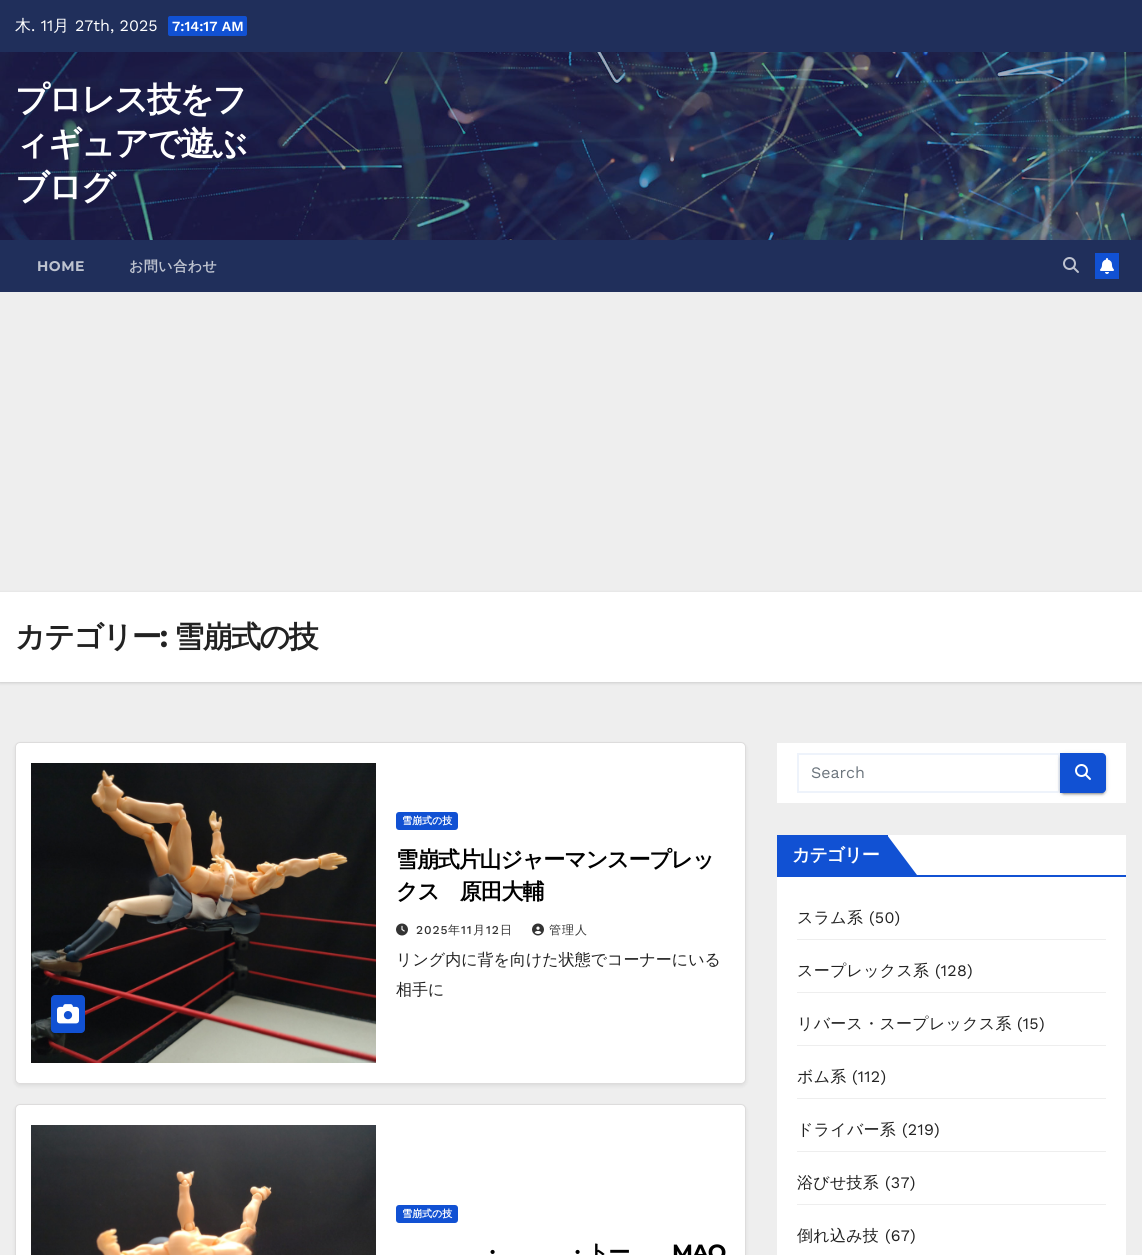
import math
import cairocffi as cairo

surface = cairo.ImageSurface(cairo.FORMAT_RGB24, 1142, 1255)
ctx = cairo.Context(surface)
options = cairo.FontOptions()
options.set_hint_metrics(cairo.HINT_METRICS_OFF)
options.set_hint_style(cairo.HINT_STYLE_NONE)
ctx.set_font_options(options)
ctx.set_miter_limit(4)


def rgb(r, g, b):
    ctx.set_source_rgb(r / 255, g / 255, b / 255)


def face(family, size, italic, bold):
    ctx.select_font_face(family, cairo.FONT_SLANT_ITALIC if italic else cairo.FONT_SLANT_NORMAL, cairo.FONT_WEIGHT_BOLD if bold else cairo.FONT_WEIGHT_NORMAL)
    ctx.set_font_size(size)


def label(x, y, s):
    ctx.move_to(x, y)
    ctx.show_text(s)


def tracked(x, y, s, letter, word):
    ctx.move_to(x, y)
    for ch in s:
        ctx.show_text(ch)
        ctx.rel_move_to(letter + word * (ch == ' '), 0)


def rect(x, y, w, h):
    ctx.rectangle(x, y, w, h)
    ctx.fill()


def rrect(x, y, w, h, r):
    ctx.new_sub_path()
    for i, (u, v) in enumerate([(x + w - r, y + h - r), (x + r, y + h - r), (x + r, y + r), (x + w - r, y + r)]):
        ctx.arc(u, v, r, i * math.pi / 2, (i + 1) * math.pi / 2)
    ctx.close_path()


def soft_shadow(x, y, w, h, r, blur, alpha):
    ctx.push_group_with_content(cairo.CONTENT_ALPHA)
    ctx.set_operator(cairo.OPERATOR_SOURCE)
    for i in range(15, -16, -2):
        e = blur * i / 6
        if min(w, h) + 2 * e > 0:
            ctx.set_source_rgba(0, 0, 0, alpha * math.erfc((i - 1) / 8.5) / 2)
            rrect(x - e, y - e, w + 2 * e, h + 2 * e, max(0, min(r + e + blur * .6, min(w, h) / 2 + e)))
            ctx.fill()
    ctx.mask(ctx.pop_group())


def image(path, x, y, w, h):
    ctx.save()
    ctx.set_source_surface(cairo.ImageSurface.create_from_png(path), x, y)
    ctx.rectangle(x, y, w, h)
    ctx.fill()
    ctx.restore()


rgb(238, 238, 238)
ctx.paint()
rgb(32, 47, 91)
rect(0, 0, 1142, 52)
face('WenQuanYi Zen Hei Medium', 16, 0, 0)
rgb(255, 255, 255)
label(15, 31, '木')
face('Work Sans', 16, 0, 0)
label(31, 31, '. 11')
face('WenQuanYi Zen Hei Medium', 16, 0, 0)
label(53, 31, '月')
face('Work Sans', 16, 0, 0)
label(75, 31, '27th, 2025')
rgb(17, 81, 211)
rrect(168, 16, 79, 20, 2)
ctx.fill()
face('Work Sans SemiBold', 14, 0, 0)
rgb(255, 255, 255)
label(172, 31, '7:14:17 AM')
image('image0.png', 0, 52, 1142, 188)
face('WenQuanYi Zen Hei', 34, 0, 1)
tracked(15, 111, 'プロレス技をフ', -1.75, 0)
tracked(15, 155, 'ィギュアで遊ぶ', -1.75, 0)
tracked(15, 199, 'ブログ', -1.75, 0)
rgb(32, 47, 91)
rect(0, 240, 1142, 52)
face('Montserrat', 14, 0, 1)
rgb(190, 195, 207)
tracked(37, 271, 'HOME', 0.5, 0)
face('WenQuanYi Zen Hei', 14, 0, 1)
tracked(129, 271, 'お問い合わせ', 0.5, 0)
image('image1.png', 1063, 257, 16, 16)
rgb(17, 81, 211)
rect(1095, 253, 24, 26)
image('image2.png', 1100, 258, 14, 16)
rgb(0, 0, 0)
soft_shadow(0, 593, 1142, 90, 0, 1.5, 0.15)
rgb(255, 255, 255)
rect(0, 592, 1142, 90)
face('WenQuanYi Zen Hei', 30, 0, 1)
rgb(34, 34, 34)
tracked(15, 647, 'カテゴリー', -1.5, 0)
face('Montserrat', 30, 0, 1)
tracked(160, 647, ':', -1.5, 0)
face('WenQuanYi Zen Hei', 30, 0, 1)
tracked(174, 647, '雪崩式の技', -1.5, 0)
rgb(0, 0, 0)
soft_shadow(15, 744, 731, 342, 5, 2, 0.08)
rgb(255, 255, 255)
rrect(15.5, 742.5, 730, 341, 4.5)
ctx.fill_preserve()
rgb(221, 220, 220)
ctx.set_line_width(1)
ctx.stroke()
image('image3.png', 31, 763, 345, 300)
rgb(17, 81, 211)
rrect(51, 995, 34, 38, 4)
ctx.fill()
image('image4.png', 57, 1004, 22, 20)
rrect(396, 812, 62, 18, 3)
ctx.fill()
face('WenQuanYi Zen Hei', 10, 0, 1)
rgb(255, 255, 255)
label(402, 824, '雪崩式の技')
face('WenQuanYi Zen Hei', 22, 0, 1)
rgb(0, 0, 0)
tracked(396, 867, '雪崩式片山ジャーマンスープレッ', -1.1, 0)
tracked(396, 899, 'クス　原田大輔', -1.1, 0)
image('image5.png', 396, 923, 12, 13)
face('Work Sans Medium', 12, 0, 0)
rgb(51, 51, 51)
tracked(416, 934, '2025', 1, 0)
face('WenQuanYi Zen Hei Medium', 12, 0, 0)
tracked(448, 934, '年', 1, 0)
face('Work Sans Medium', 12, 0, 0)
tracked(461, 934, '11', 1, 0)
face('WenQuanYi Zen Hei Medium', 12, 0, 0)
tracked(473, 934, '月', 1, 0)
face('Work Sans Medium', 12, 0, 0)
tracked(486, 934, '12', 1, 0)
face('WenQuanYi Zen Hei Medium', 12, 0, 0)
tracked(500, 934, '日', 1, 0)
image('image6.png', 532, 923, 12, 13)
tracked(549, 934, '管理人', 1, 0)
face('WenQuanYi Zen Hei Medium', 16, 0, 0)
rgb(34, 34, 34)
label(396, 965, 'リング内に背を向けた状態でコーナーにいる')
label(396, 995, '相手に')
rgb(0, 0, 0)
soft_shadow(15, 1106, 731, 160, 5, 2, 0.08)
rgb(255, 255, 255)
rrect(15.5, 1104.5, 730, 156, 4.5)
ctx.fill_preserve()
rgb(221, 220, 220)
ctx.stroke()
image('image7.png', 31, 1125, 345, 130)
rgb(17, 81, 211)
rrect(396, 1205, 62, 18, 3)
ctx.fill()
face('WenQuanYi Zen Hei', 10, 0, 1)
rgb(255, 255, 255)
label(402, 1217, '雪崩式の技')
face('WenQuanYi Zen Hei', 22, 0, 1)
rgb(0, 0, 0)
tracked(481, 1260, '・', -1.1, 0)
tracked(566, 1260, '・トー', -1.1, 0)
face('Montserrat', 22, 0, 1)
tracked(672, 1260, 'MAO', -1.1, 0)
rgb(255, 255, 255)
rect(777, 743, 349, 60)
ctx.rectangle(798, 754, 261, 38)
rgb(238, 243, 251)
ctx.set_line_width(2)
ctx.stroke()
face('Work Sans', 16, 0, 0)
rgb(108, 117, 125)
label(811, 778, 'Search')
rgb(0, 0, 0)
soft_shadow(1060, 754, 46, 40, 4, 2.5, 0.12)
soft_shadow(1062, 758, 42, 36, 2, 0.5, 0.2)
soft_shadow(1060, 755, 46, 40, 4, 1, 0.14)
rgb(17, 81, 211)
ctx.new_path()
ctx.move_to(1060, 753)
ctx.line_to(1102, 753)
ctx.curve_to(1104, 753, 1106, 755, 1106, 757)
ctx.line_to(1106, 789)
ctx.curve_to(1106, 791, 1104, 793, 1102, 793)
ctx.line_to(1060, 793)
ctx.close_path()
ctx.fill()
image('image8.png', 1075, 764, 16, 16)
rgb(255, 255, 255)
rect(777, 835, 349, 420)
rgb(17, 81, 211)
rect(777, 875, 349, 2)
rect(777, 835, 111, 40)
face('WenQuanYi Zen Hei', 18, 0, 1)
rgb(255, 255, 255)
tracked(792, 861, 'カテゴリー', -1, 0)
rgb(17, 81, 211)
ctx.new_path()
ctx.move_to(887, 875)
ctx.line_to(887, 835)
ctx.line_to(917, 875)
ctx.close_path()
ctx.fill()
rgb(238, 238, 238)
rect(797, 939, 309, 1)
face('WenQuanYi Zen Hei Medium', 16, 0, 0)
rgb(34, 34, 34)
tracked(797, 923, 'スラム系', 0.25, 0)
face('Work Sans', 16, 0, 0)
tracked(869, 923, '(50)', 0.25, 0)
rgb(238, 238, 238)
rect(797, 992, 309, 1)
face('WenQuanYi Zen Hei Medium', 16, 0, 0)
rgb(34, 34, 34)
tracked(797, 976, 'スープレックス系', 0.25, 0)
face('Work Sans', 16, 0, 0)
tracked(935, 976, '(128)', 0.25, 0)
rgb(238, 238, 238)
rect(797, 1045, 309, 1)
face('WenQuanYi Zen Hei Medium', 16, 0, 0)
rgb(34, 34, 34)
tracked(797, 1029, 'リバース・スープレックス系', 0.25, 0)
face('Work Sans', 16, 0, 0)
tracked(1017, 1029, '(15)', 0.25, 0)
rgb(238, 238, 238)
rect(797, 1098, 309, 1)
face('WenQuanYi Zen Hei Medium', 16, 0, 0)
rgb(34, 34, 34)
tracked(797, 1082, 'ボム系', 0.25, 0)
face('Work Sans', 16, 0, 0)
tracked(852, 1082, '(112)', 0.25, 0)
rgb(238, 238, 238)
rect(797, 1151, 309, 1)
face('WenQuanYi Zen Hei Medium', 16, 0, 0)
rgb(34, 34, 34)
tracked(797, 1135, 'ドライバー系', 0.25, 0)
face('Work Sans', 16, 0, 0)
tracked(902, 1135, '(219)', 0.25, 0)
rgb(238, 238, 238)
rect(797, 1204, 309, 1)
face('WenQuanYi Zen Hei Medium', 16, 0, 0)
rgb(34, 34, 34)
tracked(797, 1188, '浴びせ技系', 0.25, 0)
face('Work Sans', 16, 0, 0)
tracked(885, 1188, '(37)', 0.25, 0)
face('WenQuanYi Zen Hei Medium', 16, 0, 0)
tracked(797, 1241, '倒れ込み技', 0.25, 0)
face('Work Sans', 16, 0, 0)
tracked(885, 1241, '(67)', 0.25, 0)
surface.write_to_png('render.png')
